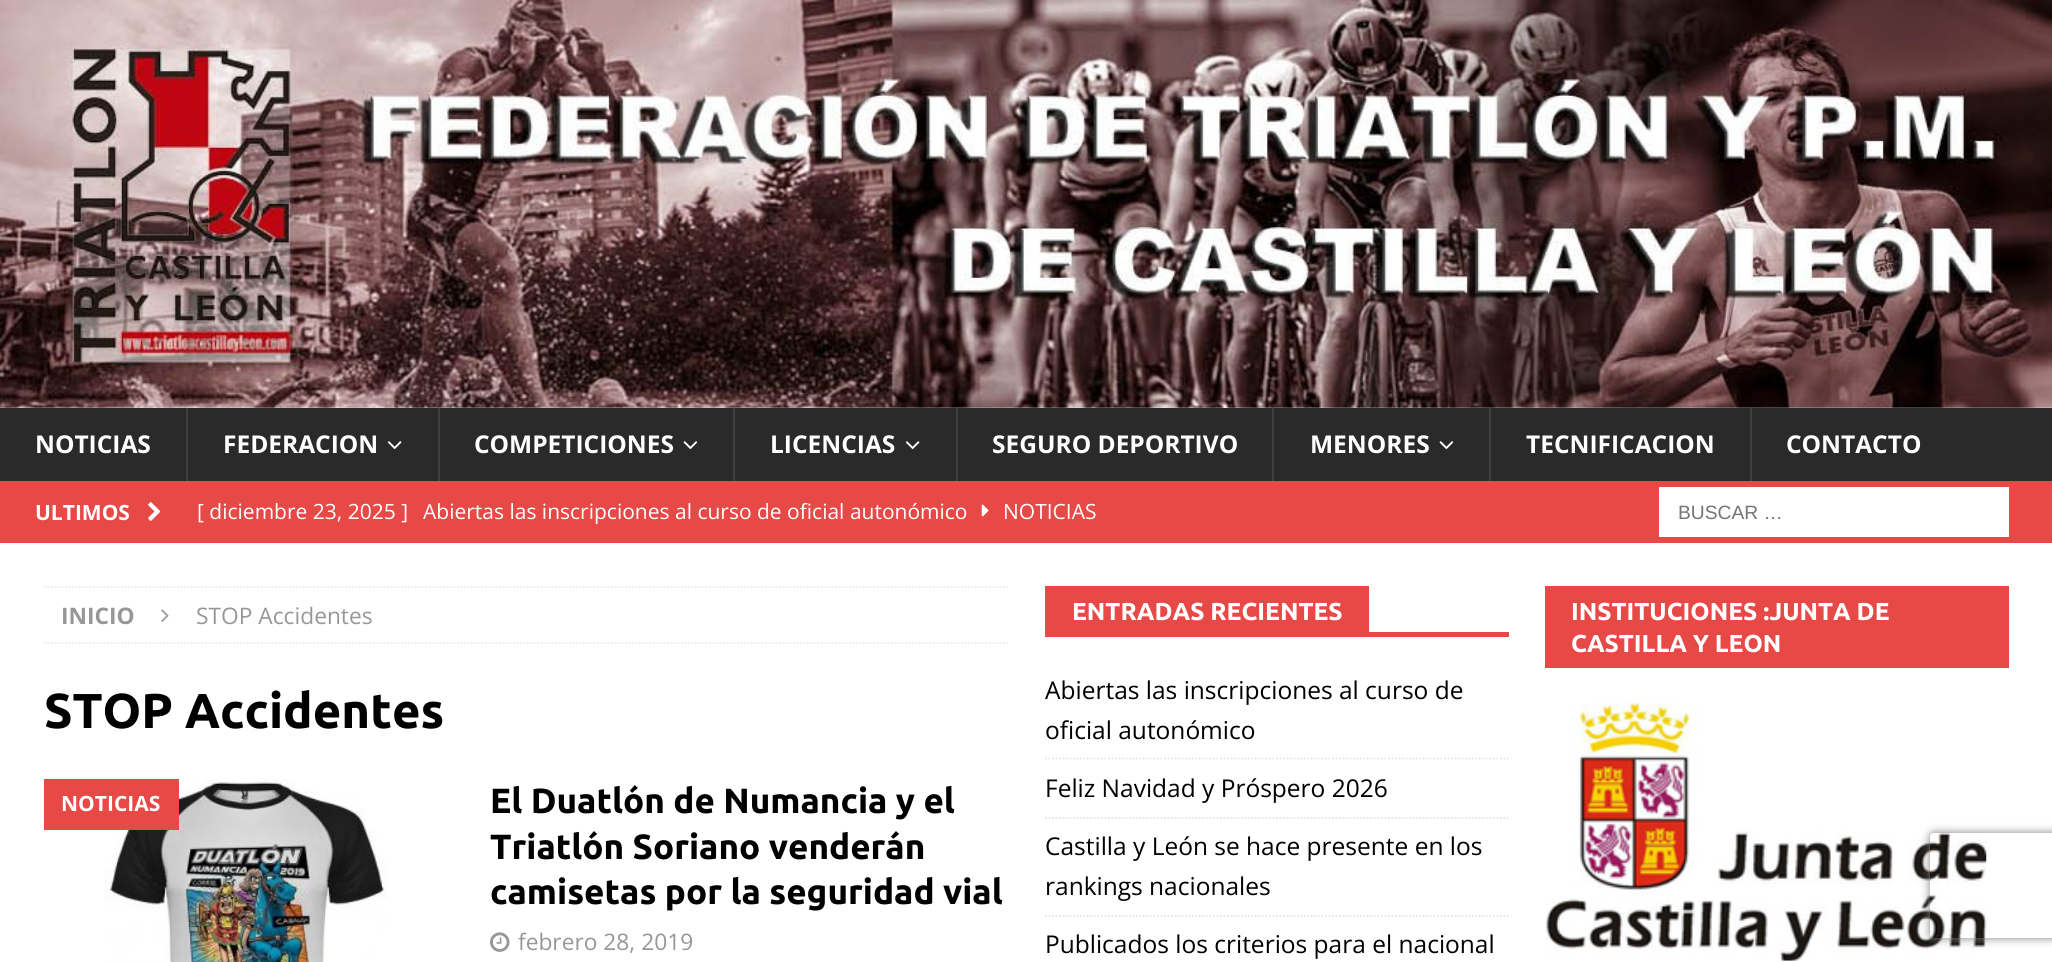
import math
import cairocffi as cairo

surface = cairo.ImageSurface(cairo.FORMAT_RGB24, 2052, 962)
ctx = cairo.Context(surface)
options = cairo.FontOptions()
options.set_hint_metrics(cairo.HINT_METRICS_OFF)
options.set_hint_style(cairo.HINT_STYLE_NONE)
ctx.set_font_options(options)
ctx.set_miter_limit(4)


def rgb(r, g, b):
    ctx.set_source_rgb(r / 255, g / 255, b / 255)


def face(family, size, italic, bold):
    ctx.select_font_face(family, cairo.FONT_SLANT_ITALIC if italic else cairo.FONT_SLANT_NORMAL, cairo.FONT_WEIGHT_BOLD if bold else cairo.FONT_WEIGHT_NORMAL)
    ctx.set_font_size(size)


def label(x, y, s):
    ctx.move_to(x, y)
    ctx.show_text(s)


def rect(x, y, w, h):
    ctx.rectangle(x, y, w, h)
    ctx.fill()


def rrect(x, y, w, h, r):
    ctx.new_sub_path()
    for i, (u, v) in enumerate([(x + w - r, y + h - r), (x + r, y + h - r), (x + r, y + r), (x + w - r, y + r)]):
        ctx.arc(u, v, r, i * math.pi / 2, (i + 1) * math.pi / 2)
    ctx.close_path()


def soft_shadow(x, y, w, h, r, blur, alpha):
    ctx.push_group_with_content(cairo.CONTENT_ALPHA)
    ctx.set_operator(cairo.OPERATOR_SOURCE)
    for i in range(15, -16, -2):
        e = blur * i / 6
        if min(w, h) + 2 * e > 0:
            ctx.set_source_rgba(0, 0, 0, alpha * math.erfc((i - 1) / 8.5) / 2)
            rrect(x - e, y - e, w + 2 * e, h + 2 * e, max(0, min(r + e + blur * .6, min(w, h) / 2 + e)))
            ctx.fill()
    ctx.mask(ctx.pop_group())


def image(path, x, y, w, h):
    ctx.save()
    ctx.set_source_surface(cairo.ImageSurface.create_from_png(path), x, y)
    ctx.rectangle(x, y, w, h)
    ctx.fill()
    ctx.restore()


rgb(255, 255, 255)
ctx.paint()
image('image0.png', 0, 0, 2052, 408)
rgb(42, 42, 42)
rect(0, 408, 2052, 73)
face('Open Sans', 24.5, 0, 1)
rgb(255, 255, 255)
label(35, 453, 'NOTICIAS')
rgb(63, 63, 63)
rect(186, 408, 2, 73)
rgb(255, 255, 255)
label(223, 453, 'FEDERACION')
image('image1.png', 387, 441, 15, 9)
rgb(63, 63, 63)
rect(438, 408, 2, 73)
rgb(255, 255, 255)
label(474, 453, 'COMPETICIONES')
image('image2.png', 683, 441, 15, 9)
rgb(63, 63, 63)
rect(733, 408, 2, 73)
rgb(255, 255, 255)
label(770, 453, 'LICENCIAS')
image('image1.png', 905, 441, 15, 9)
rgb(63, 63, 63)
rect(956, 408, 2, 73)
rgb(255, 255, 255)
label(992, 453, 'SEGURO DEPORTIVO')
rgb(63, 63, 63)
rect(1272, 408, 2, 73)
rgb(255, 255, 255)
label(1310, 453, 'MENORES')
image('image2.png', 1439, 441, 15, 9)
rgb(63, 63, 63)
rect(1489, 408, 2, 73)
rgb(255, 255, 255)
label(1526, 453, 'TECNIFICACION')
rgb(63, 63, 63)
rect(1750, 408, 2, 73)
rgb(255, 255, 255)
label(1786, 453, 'CONTACTO')
rgb(230, 73, 70)
rect(0, 481, 2052, 62)
face('Open Sans', 21, 0, 1)
rgb(255, 255, 255)
label(35, 520, 'ULTIMOS')
image('image3.png', 148, 502, 13, 19)
face('Open Sans', 21, 0, 0)
label(197, 519, '[ diciembre 23, 2025 ]')
label(423, 519, 'Abiertas las inscripciones al curso de oficial autonómico')
image('image4.png', 981, 504, 8, 13)
label(1003, 519, 'NOTICIAS')
rect(1659, 487, 350, 50)
face('Liberation Sans', 19.25, 0, 0)
rgb(117, 117, 117)
label(1678, 519, 'BUSCAR …')
ctx.new_path()
ctx.move_to(44, 587)
ctx.line_to(1008, 587)
rgb(235, 235, 235)
ctx.set_line_width(1.8)
ctx.set_dash([1.75, 1.75])
ctx.stroke()
ctx.new_path()
ctx.move_to(44, 643)
ctx.line_to(1008, 643)
ctx.stroke()
face('Open Sans', 22.75, 0, 1)
rgb(151, 151, 151)
label(61, 624, 'INICIO')
image('image5.png', 161, 609, 8, 13)
face('Open Sans', 22.75, 0, 0)
label(196, 624, 'STOP Accidentes')
face('Ubuntu', 49, 0, 1)
rgb(0, 0, 0)
label(44, 728, 'STOP Accidentes')
image('image6.png', 104, 779, 283, 183)
rgb(230, 73, 70)
rect(44, 779, 135, 51)
face('Open Sans', 21, 0, 1)
rgb(255, 255, 255)
label(61, 811, 'NOTICIAS')
face('Ubuntu', 35, 0, 1)
rgb(0, 0, 0)
label(490, 813, 'El Duatlón de Numancia y el')
label(490, 859, 'Triatlón Soriano venderán')
label(490, 904, 'camisetas por la seguridad vial')
image('image7.png', 490, 932, 20, 20)
face('Open Sans', 22.75, 0, 0)
rgb(151, 151, 151)
label(518, 950, 'febrero 28, 2019')
rgb(230, 73, 70)
rect(1045, 632, 464, 5)
rect(1045, 586, 324, 46)
face('Ubuntu', 24.5, 0, 1)
rgb(255, 255, 255)
label(1072, 620, 'ENTRADAS RECIENTES')
ctx.new_path()
ctx.move_to(1045, 758.5)
ctx.line_to(1508.5, 758.5)
rgb(229, 229, 229)
ctx.stroke()
face('Open Sans', 24.5, 0, 0)
rgb(0, 0, 0)
label(1045, 699, 'Abiertas las inscripciones al curso de')
label(1045, 739, 'oficial autonómico')
ctx.new_path()
ctx.move_to(1045, 818)
ctx.line_to(1508.5, 818)
rgb(229, 229, 229)
ctx.stroke()
rgb(0, 0, 0)
label(1045, 797, 'Feliz Navidad y Próspero 2026')
ctx.new_path()
ctx.move_to(1045, 916)
ctx.line_to(1508.5, 916)
rgb(229, 229, 229)
ctx.stroke()
rgb(0, 0, 0)
label(1045, 855, 'Castilla y León se hace presente en los')
label(1045, 895, 'rankings nacionales')
label(1045, 953, 'Publicados los criterios para el nacional')
rgb(230, 73, 70)
rect(1545, 586, 464, 82)
face('Ubuntu', 24.5, 0, 1)
rgb(255, 255, 255)
label(1571, 620, 'INSTITUCIONES :JUNTA DE')
label(1571, 652, 'CASTILLA Y LEON')
image('image8.png', 1545, 703, 442, 258)
ctx.save()
ctx.set_fill_rule(cairo.FILL_RULE_EVEN_ODD)
ctx.new_path()
ctx.move_to(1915, 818)
ctx.line_to(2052, 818)
ctx.line_to(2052, 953)
ctx.line_to(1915, 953)
ctx.close_path()
ctx.move_to(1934, 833)
ctx.line_to(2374, 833)
ctx.curve_to(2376, 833, 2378, 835, 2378, 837)
ctx.line_to(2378, 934)
ctx.curve_to(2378, 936, 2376, 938, 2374, 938)
ctx.line_to(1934, 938)
ctx.curve_to(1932, 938, 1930, 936, 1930, 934)
ctx.line_to(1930, 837)
ctx.curve_to(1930, 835, 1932, 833, 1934, 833)
ctx.close_path()
ctx.clip()
rgb(128, 128, 128)
soft_shadow(1930, 833, 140, 105, 4, 4.5, 1)
ctx.restore()
surface.write_to_png('render.png')
